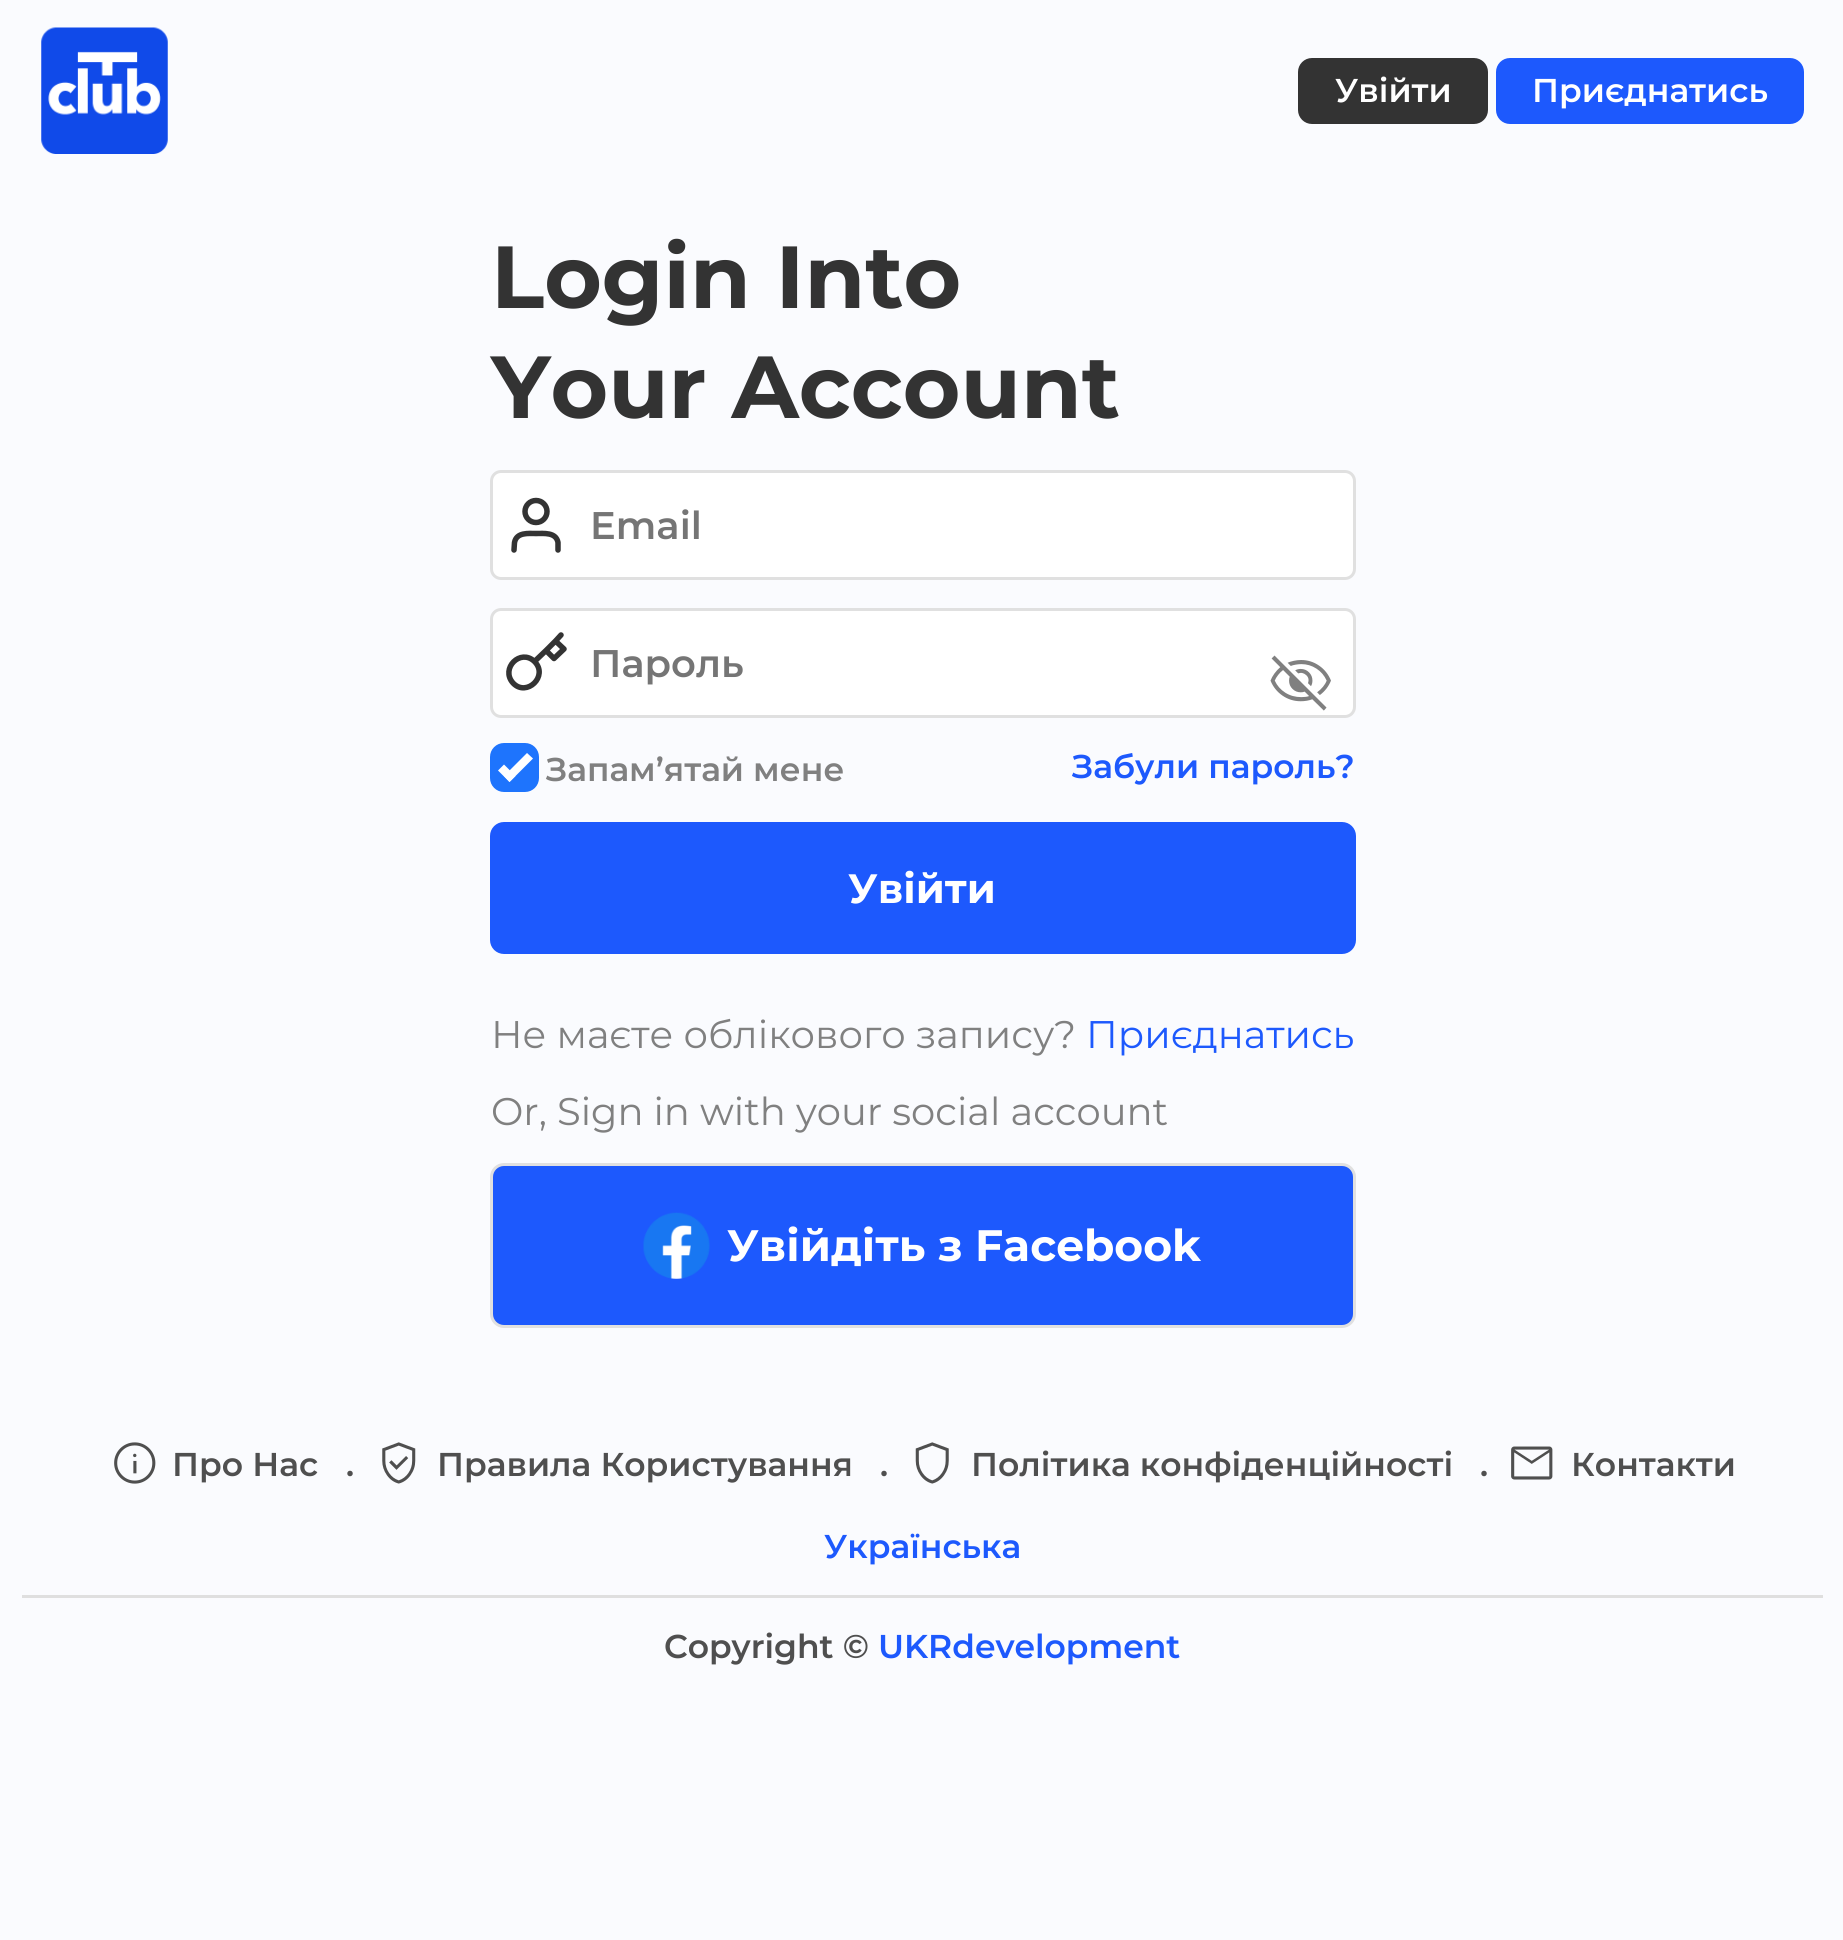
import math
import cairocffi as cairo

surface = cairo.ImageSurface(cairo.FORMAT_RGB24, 1843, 1940)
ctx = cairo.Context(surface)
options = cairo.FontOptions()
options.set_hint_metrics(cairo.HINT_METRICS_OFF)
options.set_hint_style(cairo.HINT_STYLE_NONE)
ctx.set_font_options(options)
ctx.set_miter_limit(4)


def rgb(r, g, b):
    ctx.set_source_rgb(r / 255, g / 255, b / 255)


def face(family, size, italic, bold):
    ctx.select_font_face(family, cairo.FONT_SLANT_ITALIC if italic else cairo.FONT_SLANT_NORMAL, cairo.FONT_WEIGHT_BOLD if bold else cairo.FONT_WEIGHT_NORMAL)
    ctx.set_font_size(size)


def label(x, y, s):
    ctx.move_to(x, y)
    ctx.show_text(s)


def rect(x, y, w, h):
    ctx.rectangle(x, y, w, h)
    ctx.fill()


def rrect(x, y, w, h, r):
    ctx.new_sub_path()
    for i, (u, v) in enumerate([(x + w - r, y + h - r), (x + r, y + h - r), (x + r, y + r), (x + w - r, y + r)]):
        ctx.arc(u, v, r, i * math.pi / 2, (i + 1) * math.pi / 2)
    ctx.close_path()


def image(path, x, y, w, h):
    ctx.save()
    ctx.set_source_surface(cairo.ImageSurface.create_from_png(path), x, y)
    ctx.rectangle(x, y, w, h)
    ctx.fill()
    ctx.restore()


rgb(250, 251, 254)
ctx.paint()
image('image0.png', 41, 27, 127, 127)
rgb(51, 51, 51)
rrect(1299.5, 59.5, 187, 63, 12.5)
ctx.fill_preserve()
ctx.set_line_width(3)
ctx.stroke()
face('Montserrat SemiBold', 33, 0, 0)
rgb(255, 255, 255)
label(1335, 102, 'Увійти')
rgb(29, 89, 253)
rrect(1497.5, 59.5, 305, 63, 12.5)
ctx.fill_preserve()
ctx.stroke()
rgb(255, 255, 255)
label(1532, 102, 'Приєднатись')
face('Montserrat', 88, 0, 1)
rgb(51, 51, 51)
label(491, 308, 'Login Into')
label(491, 418, 'Your Account')
rgb(255, 255, 255)
rrect(491.5, 471.5, 863, 107, 9.5)
ctx.fill_preserve()
rgb(224, 224, 224)
ctx.stroke()
ctx.new_path()
ctx.move_to(558, 550)
ctx.line_to(558, 542.5)
ctx.curve_to(556, 532, 544, 533.5, 536, 533.5)
ctx.curve_to(528.5, 533.5, 516.5, 532, 514.5, 542.5)
ctx.line_to(514, 550)
rgb(51, 51, 51)
ctx.set_line_width(5.5)
ctx.set_line_cap(cairo.LINE_CAP_ROUND)
ctx.set_line_join(cairo.LINE_JOIN_ROUND)
ctx.stroke()
ctx.arc(536, 511.5, 11, 0, 2 * math.pi)
ctx.set_line_cap(cairo.LINE_CAP_BUTT)
ctx.set_line_join(cairo.LINE_JOIN_MITER)
ctx.stroke()
face('Montserrat SemiBold', 38.5, 0, 0)
rgb(117, 117, 117)
label(590, 539, 'Email')
rgb(255, 255, 255)
rrect(491.5, 609.5, 863, 107, 9.5)
ctx.fill_preserve()
rgb(224, 224, 224)
ctx.set_line_width(3)
ctx.stroke()
ctx.new_path()
ctx.move_to(561, 635)
ctx.line_to(555.5, 641)
ctx.move_to(534.5, 661.5)
ctx.curve_to(549, 676, 526.5, 697.5, 513, 683)
ctx.curve_to(500, 668.5, 520.5, 648, 534.5, 661.5)
ctx.close_path()
ctx.move_to(534.5, 661.5)
ctx.line_to(546, 650.5)
ctx.move_to(546, 650.5)
ctx.line_to(554, 658.5)
ctx.line_to(564, 649)
ctx.line_to(555.5, 641)
ctx.move_to(546, 650.5)
ctx.line_to(555.5, 641)
rgb(51, 51, 51)
ctx.set_line_width(5.5)
ctx.set_line_cap(cairo.LINE_CAP_ROUND)
ctx.set_line_join(cairo.LINE_JOIN_ROUND)
ctx.stroke()
rgb(117, 117, 117)
label(590, 677, 'Пароль')
image('image1.png', 1270, 655, 61, 56)
rgb(30, 116, 253)
rrect(493, 746, 43, 43, 11)
ctx.fill_preserve()
ctx.set_line_width(6)
ctx.set_line_cap(cairo.LINE_CAP_BUTT)
ctx.set_line_join(cairo.LINE_JOIN_MITER)
ctx.stroke()
rgb(255, 255, 255)
ctx.new_path()
ctx.move_to(527, 753)
ctx.line_to(533, 758.5)
ctx.line_to(509.5, 782)
ctx.line_to(504, 776)
ctx.close_path()
ctx.fill()
ctx.new_path()
ctx.move_to(504, 764.5)
ctx.line_to(515.5, 776)
ctx.line_to(509.5, 782)
ctx.line_to(498, 770.5)
ctx.close_path()
ctx.fill()
face('Montserrat SemiBold', 33, 0, 0)
rgb(128, 128, 128)
label(546, 781, 'Запам’ятай мене')
rgb(29, 89, 253)
label(1072, 778, 'Забули пароль?')
rrect(491.5, 823.5, 863, 129, 12.5)
ctx.fill_preserve()
ctx.set_line_width(3)
ctx.stroke()
face('Montserrat', 41, 0, 1)
rgb(255, 255, 255)
label(848, 903, 'Увійти')
face('Montserrat', 38.5, 0, 0)
rgb(128, 128, 128)
label(491, 1048, 'Не маєте облікового запису?')
rgb(29, 89, 253)
label(1086, 1048, 'Приєднатись')
rgb(128, 128, 128)
label(491, 1125, 'Or, Sign in with your social account')
rgb(29, 89, 253)
rrect(491.5, 1164.5, 863, 162, 12.5)
ctx.fill_preserve()
rgb(224, 224, 224)
ctx.stroke()
image('image2.png', 643, 1212, 67, 67)
face('Montserrat', 44, 0, 1)
rgb(255, 255, 255)
label(727, 1261, 'Увійдіть з Facebook')
rgb(223, 223, 223)
rect(22, 1595, 1801, 3)
image('image3.png', 114, 1442, 42, 42)
face('Montserrat SemiBold', 33, 0, 0)
rgb(79, 79, 79)
label(172, 1476, 'Про Нас')
label(346, 1476, '.')
image('image4.png', 382, 1442, 34, 42)
label(437, 1476, 'Правила Користування')
label(880, 1476, '.')
image('image5.png', 915, 1442, 34, 42)
label(971, 1476, 'Політика конфіденційності')
label(1480, 1476, '.')
image('image6.png', 1511, 1446, 42, 34)
label(1571, 1476, 'Контакти')
rgb(29, 89, 253)
label(824, 1558, 'Українська')
rgb(79, 79, 79)
label(664, 1658, 'Copyright ©')
rgb(29, 89, 253)
label(878, 1658, 'UKRdevelopment')
surface.write_to_png('render.png')
